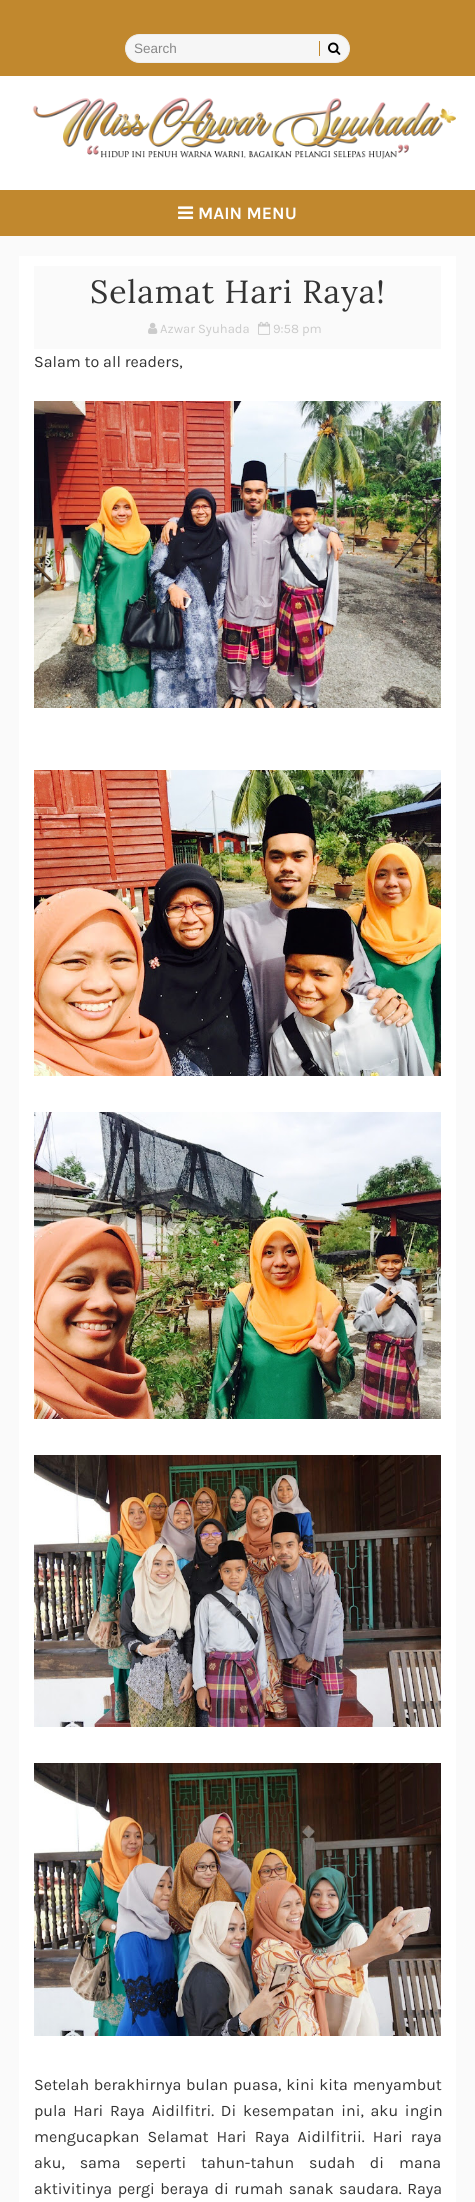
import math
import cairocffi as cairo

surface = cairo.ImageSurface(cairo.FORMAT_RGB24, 475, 2202)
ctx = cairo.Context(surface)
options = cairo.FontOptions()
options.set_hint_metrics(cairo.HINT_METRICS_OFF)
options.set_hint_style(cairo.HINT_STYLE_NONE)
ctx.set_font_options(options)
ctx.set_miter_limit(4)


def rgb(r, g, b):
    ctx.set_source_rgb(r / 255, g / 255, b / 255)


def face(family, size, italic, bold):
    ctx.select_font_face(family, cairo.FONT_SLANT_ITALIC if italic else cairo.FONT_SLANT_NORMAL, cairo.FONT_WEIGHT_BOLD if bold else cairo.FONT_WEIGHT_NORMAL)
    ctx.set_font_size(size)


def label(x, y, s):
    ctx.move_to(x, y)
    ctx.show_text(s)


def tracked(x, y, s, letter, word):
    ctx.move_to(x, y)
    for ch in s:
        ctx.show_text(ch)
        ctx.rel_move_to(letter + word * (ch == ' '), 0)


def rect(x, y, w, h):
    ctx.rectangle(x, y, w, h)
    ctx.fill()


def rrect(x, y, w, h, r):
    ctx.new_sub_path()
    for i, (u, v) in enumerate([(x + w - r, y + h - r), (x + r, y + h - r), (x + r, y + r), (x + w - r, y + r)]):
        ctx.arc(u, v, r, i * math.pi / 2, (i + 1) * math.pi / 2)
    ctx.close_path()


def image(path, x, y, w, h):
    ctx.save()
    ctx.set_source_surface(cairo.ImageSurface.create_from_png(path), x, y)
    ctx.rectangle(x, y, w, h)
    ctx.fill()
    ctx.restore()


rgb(250, 250, 250)
ctx.paint()
rgb(193, 136, 46)
rect(0, 0, 475, 76)
rgb(246, 246, 246)
rrect(125.5, 34.5, 224, 28, 14)
ctx.fill_preserve()
rgb(238, 238, 238)
ctx.set_line_width(1)
ctx.stroke()
rgb(193, 136, 46)
rect(319, 41, 1, 15)
face('Liberation Sans', 13.5, 0, 0)
rgb(136, 136, 136)
label(134, 53, 'Search')
image('image0.png', 328, 42, 13, 13)
rgb(255, 255, 255)
rect(0, 76, 475, 114)
image('image1.png', 32, 97, 424, 62)
rgb(193, 136, 46)
rect(0, 190, 475, 46)
image('image2.png', 178, 206, 16, 13)
face('Karla', 17.5, 0, 1)
rgb(255, 255, 255)
label(198, 219, 'MAIN MENU')
rect(19, 256, 437, 1946)
rgb(250, 250, 250)
rect(34, 266, 407, 83)
face('Lora', 32, 0, 0)
rgb(51, 51, 51)
tracked(90, 303, 'Selamat Hari Raya!', 1, 0)
image('image3.png', 148, 322, 10, 12)
face('Karla', 13, 0, 0)
rgb(203, 203, 203)
label(160, 333, 'Azwar Syuhada')
image('image4.png', 258, 321, 12, 14)
label(273, 333, '9:58 pm')
face('Karla', 16, 0, 0)
rgb(51, 51, 51)
label(34, 367, 'Salam to all readers,')
image('image5.png', 34, 401, 407, 307)
image('image6.png', 34, 770, 407, 306)
image('image7.png', 34, 1112, 407, 307)
image('image8.png', 34, 1455, 407, 272)
image('image9.png', 34, 1763, 407, 273)
tracked(34, 2090, 'Setelah berakhirnya bulan puasa, kini kita menyambut', 0, 1)
tracked(34, 2116, 'pula Hari Raya Aidilfitri. Di kesempatan ini, aku ingin', 0, 3)
tracked(34, 2142, 'mengucapkan Selamat Hari Raya Aidilfitrii. Hari raya', 0, 4.25)
tracked(34, 2168, 'aku, sama seperti tahun-tahun sudah di mana', 0, 11)
tracked(34, 2194, 'aktivitinya pergi beraya di rumah sanak saudara. Raya', 0, 1.75)
surface.write_to_png('render.png')
